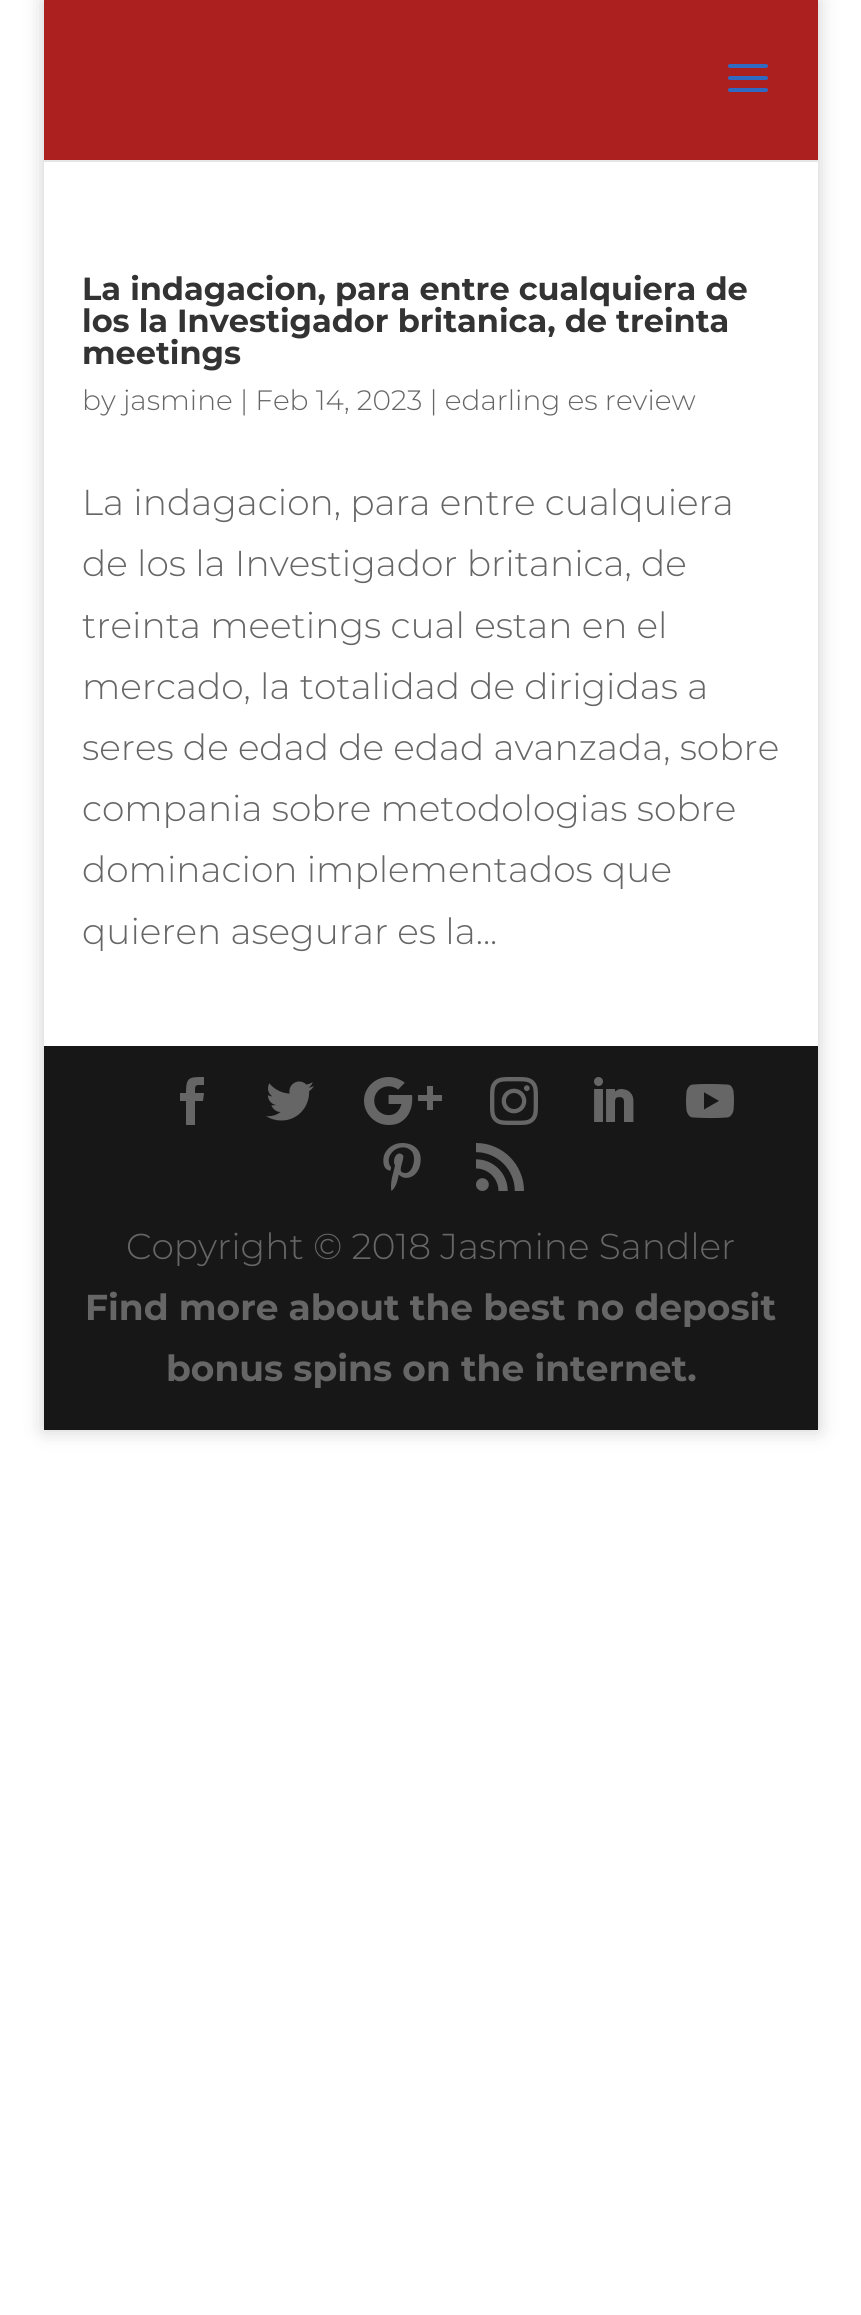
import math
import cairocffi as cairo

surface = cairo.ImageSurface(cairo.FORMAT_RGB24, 861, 2315)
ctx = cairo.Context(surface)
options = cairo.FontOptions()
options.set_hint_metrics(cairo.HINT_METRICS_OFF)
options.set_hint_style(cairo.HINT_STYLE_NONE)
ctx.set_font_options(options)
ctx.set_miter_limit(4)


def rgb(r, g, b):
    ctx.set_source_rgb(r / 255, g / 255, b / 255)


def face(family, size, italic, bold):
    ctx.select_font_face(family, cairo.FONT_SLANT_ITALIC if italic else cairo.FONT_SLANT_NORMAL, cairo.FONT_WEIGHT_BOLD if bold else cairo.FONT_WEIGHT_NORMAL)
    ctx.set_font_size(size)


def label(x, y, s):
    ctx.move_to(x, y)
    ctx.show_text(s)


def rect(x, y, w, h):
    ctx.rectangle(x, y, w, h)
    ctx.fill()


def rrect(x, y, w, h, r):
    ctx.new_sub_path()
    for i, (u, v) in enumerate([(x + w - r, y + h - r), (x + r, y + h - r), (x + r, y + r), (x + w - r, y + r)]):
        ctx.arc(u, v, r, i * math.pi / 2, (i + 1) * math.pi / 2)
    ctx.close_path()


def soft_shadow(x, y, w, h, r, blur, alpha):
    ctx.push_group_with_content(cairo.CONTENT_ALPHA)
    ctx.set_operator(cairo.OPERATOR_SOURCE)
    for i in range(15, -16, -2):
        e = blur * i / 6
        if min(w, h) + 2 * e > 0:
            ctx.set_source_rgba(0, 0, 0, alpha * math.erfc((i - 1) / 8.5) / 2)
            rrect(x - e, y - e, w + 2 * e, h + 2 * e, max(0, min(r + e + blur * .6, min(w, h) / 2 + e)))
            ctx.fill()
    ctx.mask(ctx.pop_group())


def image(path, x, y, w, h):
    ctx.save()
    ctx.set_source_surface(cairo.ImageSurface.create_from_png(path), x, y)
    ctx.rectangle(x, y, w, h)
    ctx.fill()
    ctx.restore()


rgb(255, 255, 255)
ctx.paint()
ctx.save()
ctx.set_fill_rule(cairo.FILL_RULE_EVEN_ODD)
ctx.new_path()
ctx.move_to(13, 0)
ctx.line_to(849, 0)
ctx.line_to(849, 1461)
ctx.line_to(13, 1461)
ctx.close_path()
ctx.move_to(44, 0)
ctx.line_to(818, 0)
ctx.line_to(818, 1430)
ctx.line_to(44, 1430)
ctx.close_path()
ctx.clip()
rgb(0, 0, 0)
soft_shadow(44, 0, 774, 1430, 0, 10, 0.2)
ctx.restore()
rgb(230, 230, 230)
rect(44, 160, 774, 2)
rgb(172, 32, 32)
rect(44, 0, 774, 160)
image('image0.png', 728, 64, 40, 28)
face('Montserrat', 32, 0, 1)
rgb(51, 51, 51)
label(82, 300, 'La indagacion, para entre cualquiera de')
label(82, 332, 'los la Investigador britanica, de treinta')
label(82, 364, 'meetings')
face('Montserrat Light', 28, 0, 0)
rgb(102, 102, 102)
label(82, 410, 'by jasmine | Feb 14, 2023 | edarling es review')
face('Montserrat Light', 36, 0, 0)
label(82, 515, 'La indagacion, para entre cualquiera')
label(82, 576, 'de los la Investigador britanica, de')
label(82, 638, 'treinta meetings cual estan en el')
label(82, 699, 'mercado, la totalidad de dirigidas a')
label(82, 760, 'seres de edad de edad avanzada, sobre')
label(82, 821, 'compania sobre metodologias sobre')
label(82, 882, 'dominacion implementados que')
label(82, 944, 'quieren asegurar es la...')
rgb(23, 23, 23)
rect(44, 1046, 774, 384)
rgb(102, 102, 102)
ctx.new_path()
ctx.move_to(186, 1125)
ctx.line_to(195, 1125)
ctx.line_to(195, 1101)
ctx.line_to(203, 1101)
ctx.line_to(204, 1093)
ctx.line_to(195, 1093)
ctx.curve_to(195, 1084, 195, 1085, 204, 1085)
ctx.line_to(204, 1077)
ctx.curve_to(189, 1077, 186, 1077, 186, 1093)
ctx.line_to(180, 1093)
ctx.line_to(180, 1101)
ctx.line_to(186, 1101)
ctx.close_path()
ctx.fill()
image('image1.png', 266, 1081, 48, 40)
image('image2.png', 364, 1077, 78, 48)
image('image3.png', 490, 1077, 48, 48)
image('image4.png', 594, 1077, 40, 45)
image('image5.png', 686, 1084, 48, 35)
image('image6.png', 383, 1143, 38, 48)
image('image7.png', 476, 1143, 48, 48)
label(126, 1259, 'Copyright © 2018 Jasmine Sandler')
face('Montserrat', 36, 0, 1)
label(85, 1320, 'Find more about the best no deposit')
label(166, 1381, 'bonus spins on the internet.')
surface.write_to_png('render.png')
